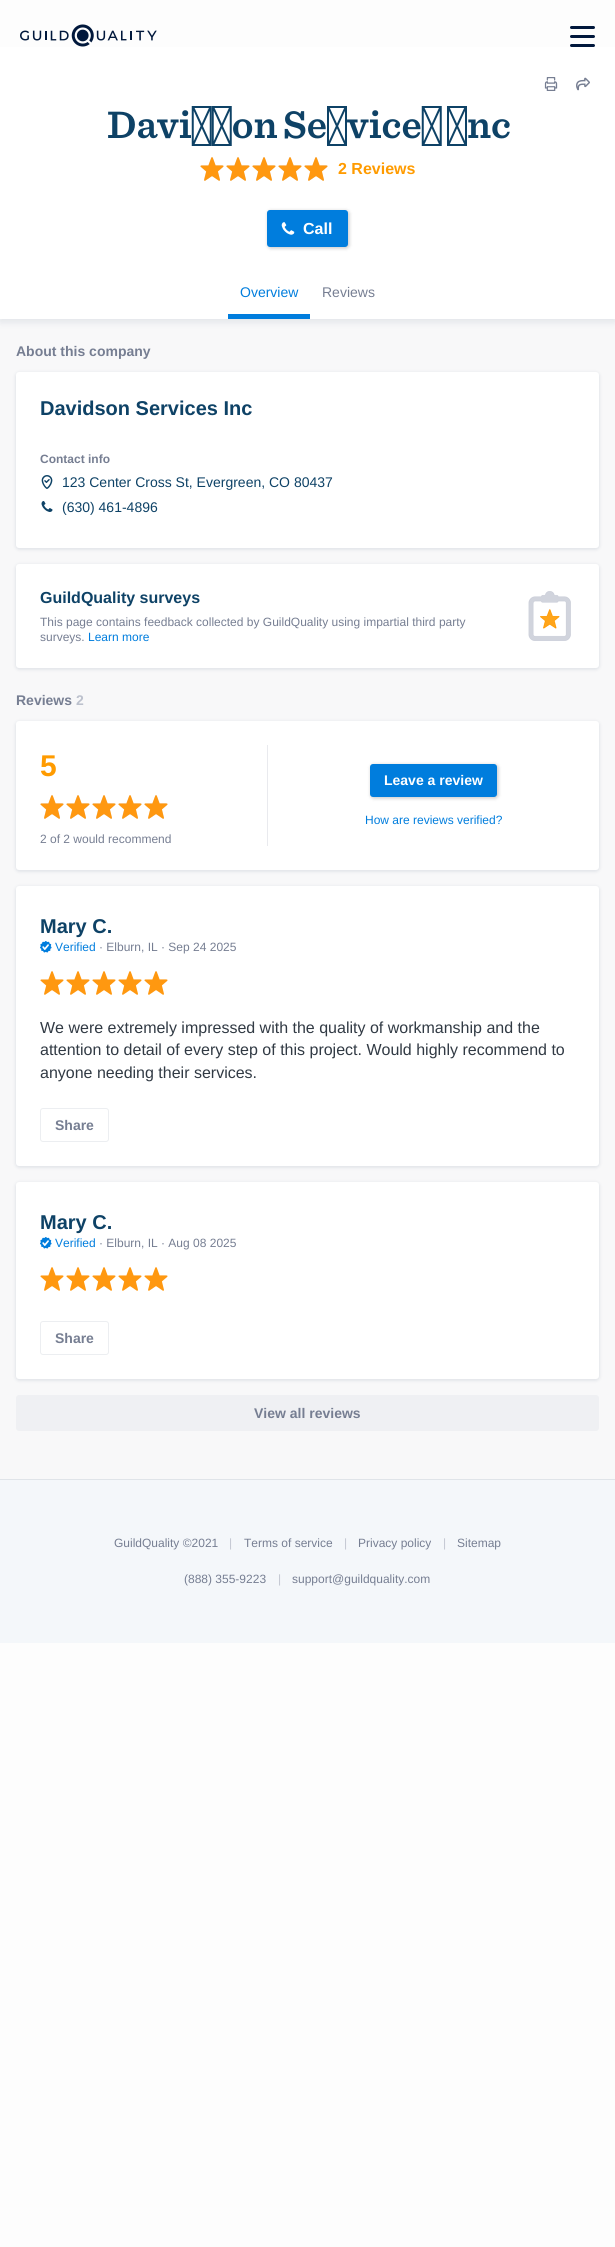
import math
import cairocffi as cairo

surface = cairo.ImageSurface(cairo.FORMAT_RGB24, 615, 2247)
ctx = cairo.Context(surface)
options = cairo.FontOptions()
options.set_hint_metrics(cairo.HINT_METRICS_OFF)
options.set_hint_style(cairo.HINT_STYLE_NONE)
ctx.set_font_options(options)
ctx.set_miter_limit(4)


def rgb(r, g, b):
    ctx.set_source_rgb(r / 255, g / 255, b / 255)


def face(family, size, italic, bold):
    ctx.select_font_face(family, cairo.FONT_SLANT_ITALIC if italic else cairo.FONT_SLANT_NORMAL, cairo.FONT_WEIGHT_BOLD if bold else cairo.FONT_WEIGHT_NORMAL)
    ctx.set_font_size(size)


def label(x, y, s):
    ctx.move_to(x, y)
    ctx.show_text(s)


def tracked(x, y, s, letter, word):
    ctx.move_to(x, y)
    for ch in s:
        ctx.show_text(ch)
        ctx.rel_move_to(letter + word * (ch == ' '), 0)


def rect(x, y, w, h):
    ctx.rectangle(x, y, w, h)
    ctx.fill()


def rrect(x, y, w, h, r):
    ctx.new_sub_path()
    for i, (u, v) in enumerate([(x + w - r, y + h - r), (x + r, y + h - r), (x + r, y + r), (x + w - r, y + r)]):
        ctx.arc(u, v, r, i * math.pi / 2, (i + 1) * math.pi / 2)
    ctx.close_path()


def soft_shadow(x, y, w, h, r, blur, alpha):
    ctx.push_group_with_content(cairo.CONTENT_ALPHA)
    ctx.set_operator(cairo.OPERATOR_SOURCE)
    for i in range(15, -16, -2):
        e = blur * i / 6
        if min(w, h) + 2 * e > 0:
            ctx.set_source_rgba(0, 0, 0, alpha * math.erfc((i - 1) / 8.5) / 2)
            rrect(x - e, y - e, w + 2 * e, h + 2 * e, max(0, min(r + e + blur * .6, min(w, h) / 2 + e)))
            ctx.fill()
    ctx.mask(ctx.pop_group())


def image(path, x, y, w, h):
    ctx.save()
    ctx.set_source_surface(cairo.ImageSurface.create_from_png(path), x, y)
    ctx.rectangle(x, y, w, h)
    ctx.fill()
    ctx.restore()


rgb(253, 253, 253)
ctx.paint()
rgb(248, 248, 249)
rect(0, 319, 615, 1160)
rgb(51, 74, 109)
soft_shadow(0, 55, 615, 267, 0, 4, 0.12)
image('image0.png', 20, 24, 137, 23)
rgb(1, 24, 60)
rrect(570, 26, 25, 3, 1.5)
ctx.fill()
rrect(570, 35, 25, 3, 1.5)
ctx.fill()
rrect(570, 44, 25, 3, 1.5)
ctx.fill()
rgb(255, 255, 255)
rect(0, 47, 615, 272)
image('image1.png', 544, 77, 14, 14)
image('image2.png', 576, 77, 14, 14)
face('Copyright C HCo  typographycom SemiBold', 40, 0, 0)
rgb(14, 66, 102)
tracked(107, 138, 'Davidson Services Inc', 0, -2)
image('image3.png', 200, 157, 24, 24)
image('image4.png', 200, 157, 24, 24)
image('image3.png', 226, 157, 24, 24)
image('image4.png', 226, 157, 24, 24)
image('image3.png', 252, 157, 24, 24)
image('image4.png', 252, 157, 24, 24)
image('image3.png', 278, 157, 24, 24)
image('image4.png', 278, 157, 24, 24)
image('image3.png', 304, 157, 24, 24)
image('image4.png', 304, 157, 24, 24)
face('Liberation Sans', 16, 0, 1)
rgb(255, 155, 0)
label(338, 174, '2 Reviews')
rgb(0, 0, 0)
soft_shadow(268, 211, 81, 37, 3, 2, 0.24)
rgb(0, 125, 221)
rrect(267, 210, 81, 37, 3)
ctx.fill()
image('image5.png', 281, 222, 14, 13)
rgb(255, 255, 255)
label(303, 234, 'Call')
face('Liberation Sans', 14, 0, 0)
rgb(0, 125, 221)
label(240, 297, 'Overview')
rect(228, 314, 82, 5)
rgb(118, 126, 146)
label(322, 297, 'Reviews')
face('Liberation Sans', 14, 0, 1)
label(16, 356, 'About this company')
rgb(51, 74, 109)
soft_shadow(16, 373, 583, 176, 3, 2, 0.16)
rgb(255, 255, 255)
rrect(16, 372, 583, 176, 3)
ctx.fill()
face('Liberation Sans', 20, 0, 1)
rgb(14, 66, 102)
label(40, 415, 'Davidson Services Inc')
face('Liberation Sans', 12, 0, 1)
rgb(118, 126, 146)
label(40, 463, 'Contact info')
image('image6.png', 41, 475, 12, 14)
face('Liberation Sans', 14, 0, 0)
rgb(14, 66, 102)
label(62, 487, '123 Center Cross St, Evergreen, CO 80437')
image('image7.png', 41, 501, 12, 11)
label(62, 512, '(630) 461-4896')
rgb(51, 74, 109)
soft_shadow(16, 565, 583, 104, 3, 2, 0.16)
rgb(255, 255, 255)
rrect(16, 564, 583, 104, 3)
ctx.fill()
face('Liberation Sans', 16, 0, 1)
rgb(14, 66, 102)
label(40, 603, 'GuildQuality surveys')
face('Liberation Sans', 12, 0, 0)
rgb(118, 126, 146)
label(40, 626, 'This page contains feedback collected by GuildQuality using impartial third party')
label(40, 641, 'surveys.')
rgb(0, 125, 221)
label(88, 641, 'Learn more')
image('image8.png', 528, 591, 43, 50)
face('Liberation Sans', 14, 0, 1)
rgb(118, 126, 146)
label(16, 705, 'Reviews')
rgb(188, 193, 205)
label(76, 705, '2')
rgb(51, 74, 109)
soft_shadow(16, 722, 583, 149, 3, 2, 0.16)
rgb(255, 255, 255)
rrect(16, 721, 583, 149, 3)
ctx.fill()
face('Liberation Sans', 30, 0, 1)
rgb(255, 155, 0)
label(40, 776, '5')
image('image3.png', 40, 795, 24, 24)
image('image4.png', 40, 795, 24, 24)
image('image3.png', 66, 795, 24, 24)
image('image4.png', 66, 795, 24, 24)
image('image3.png', 92, 795, 24, 24)
image('image4.png', 92, 795, 24, 24)
image('image3.png', 118, 795, 24, 24)
image('image4.png', 118, 795, 24, 24)
image('image3.png', 144, 795, 24, 24)
image('image4.png', 144, 795, 24, 24)
face('Liberation Sans', 12, 0, 0)
rgb(118, 126, 146)
label(40, 843, '2 of 2 would recommend')
rgb(233, 234, 238)
rect(267, 745, 1, 101)
rgb(0, 0, 0)
soft_shadow(371, 765, 127, 33, 3, 2, 0.24)
rgb(0, 125, 221)
rrect(370, 764, 127, 33, 3)
ctx.fill()
face('Liberation Sans', 14, 0, 1)
rgb(255, 255, 255)
label(384, 785, 'Leave a review')
face('Liberation Sans', 12, 0, 0)
rgb(0, 125, 221)
label(365, 824, 'How are reviews verified?')
rgb(51, 74, 109)
soft_shadow(16, 887, 583, 280, 3, 2, 0.16)
rgb(255, 255, 255)
rrect(16, 886, 583, 280, 3)
ctx.fill()
face('Liberation Sans', 20, 0, 1)
rgb(14, 66, 102)
label(40, 933, 'Mary C.')
image('image9.png', 40, 941, 12, 12)
face('Liberation Sans', 12, 0, 0)
rgb(0, 125, 221)
label(55, 951, 'Verified')
rgb(118, 126, 146)
label(99, 951, '· Elburn, IL · Sep 24 2025')
image('image10.png', 40, 971, 24, 24)
image('image10.png', 66, 971, 24, 24)
image('image10.png', 92, 971, 24, 24)
image('image10.png', 118, 971, 24, 24)
image('image10.png', 144, 971, 24, 24)
face('Liberation Sans', 16, 0, 0)
rgb(49, 58, 68)
label(40, 1033, 'We were extremely impressed with the quality of workmanship and the')
label(40, 1055, 'attention to detail of every step of this project. Would highly recommend to')
label(40, 1078, 'anyone needing their services.')
rrect(40.5, 1108.5, 68, 33, 2.5)
rgb(236, 238, 241)
ctx.set_line_width(1)
ctx.stroke()
face('Liberation Sans', 14, 0, 1)
rgb(118, 126, 146)
label(55, 1130, 'Share')
rgb(51, 74, 109)
soft_shadow(16, 1183, 583, 197, 3, 2, 0.16)
rgb(255, 255, 255)
rrect(16, 1182, 583, 197, 3)
ctx.fill()
face('Liberation Sans', 20, 0, 1)
rgb(14, 66, 102)
label(40, 1229, 'Mary C.')
image('image9.png', 40, 1237, 12, 12)
face('Liberation Sans', 12, 0, 0)
rgb(0, 125, 221)
label(55, 1247, 'Verified')
rgb(118, 126, 146)
label(99, 1247, '· Elburn, IL · Aug 08 2025')
image('image10.png', 40, 1267, 24, 24)
image('image10.png', 66, 1267, 24, 24)
image('image10.png', 92, 1267, 24, 24)
image('image10.png', 118, 1267, 24, 24)
image('image10.png', 144, 1267, 24, 24)
rrect(40.5, 1321.5, 68, 33, 2.5)
rgb(236, 238, 241)
ctx.stroke()
face('Liberation Sans', 14, 0, 1)
rgb(118, 126, 146)
label(55, 1343, 'Share')
rgb(239, 240, 243)
rrect(16, 1395, 583, 36, 3)
ctx.fill()
rgb(118, 126, 146)
label(254, 1418, 'View all reviews')
rgb(244, 247, 250)
rect(0, 1480, 615, 163)
rgb(224, 228, 233)
rect(0, 1479, 615, 1)
face('Liberation Sans', 12, 0, 0)
rgb(118, 126, 146)
label(114, 1547, 'GuildQuality ©2021')
rgb(194, 199, 208)
label(229, 1547, '|')
rgb(118, 126, 146)
label(244, 1547, 'Terms of service')
rgb(194, 199, 208)
label(344, 1547, '|')
rgb(118, 126, 146)
label(358, 1547, 'Privacy policy')
rgb(194, 199, 208)
label(443, 1547, '|')
rgb(118, 126, 146)
label(457, 1547, 'Sitemap')
label(184, 1583, '(888) 355-9223')
rgb(194, 199, 208)
label(278, 1583, '|')
rgb(118, 126, 146)
label(292, 1583, 'support@guildquality.com')
surface.write_to_png('render.png')
